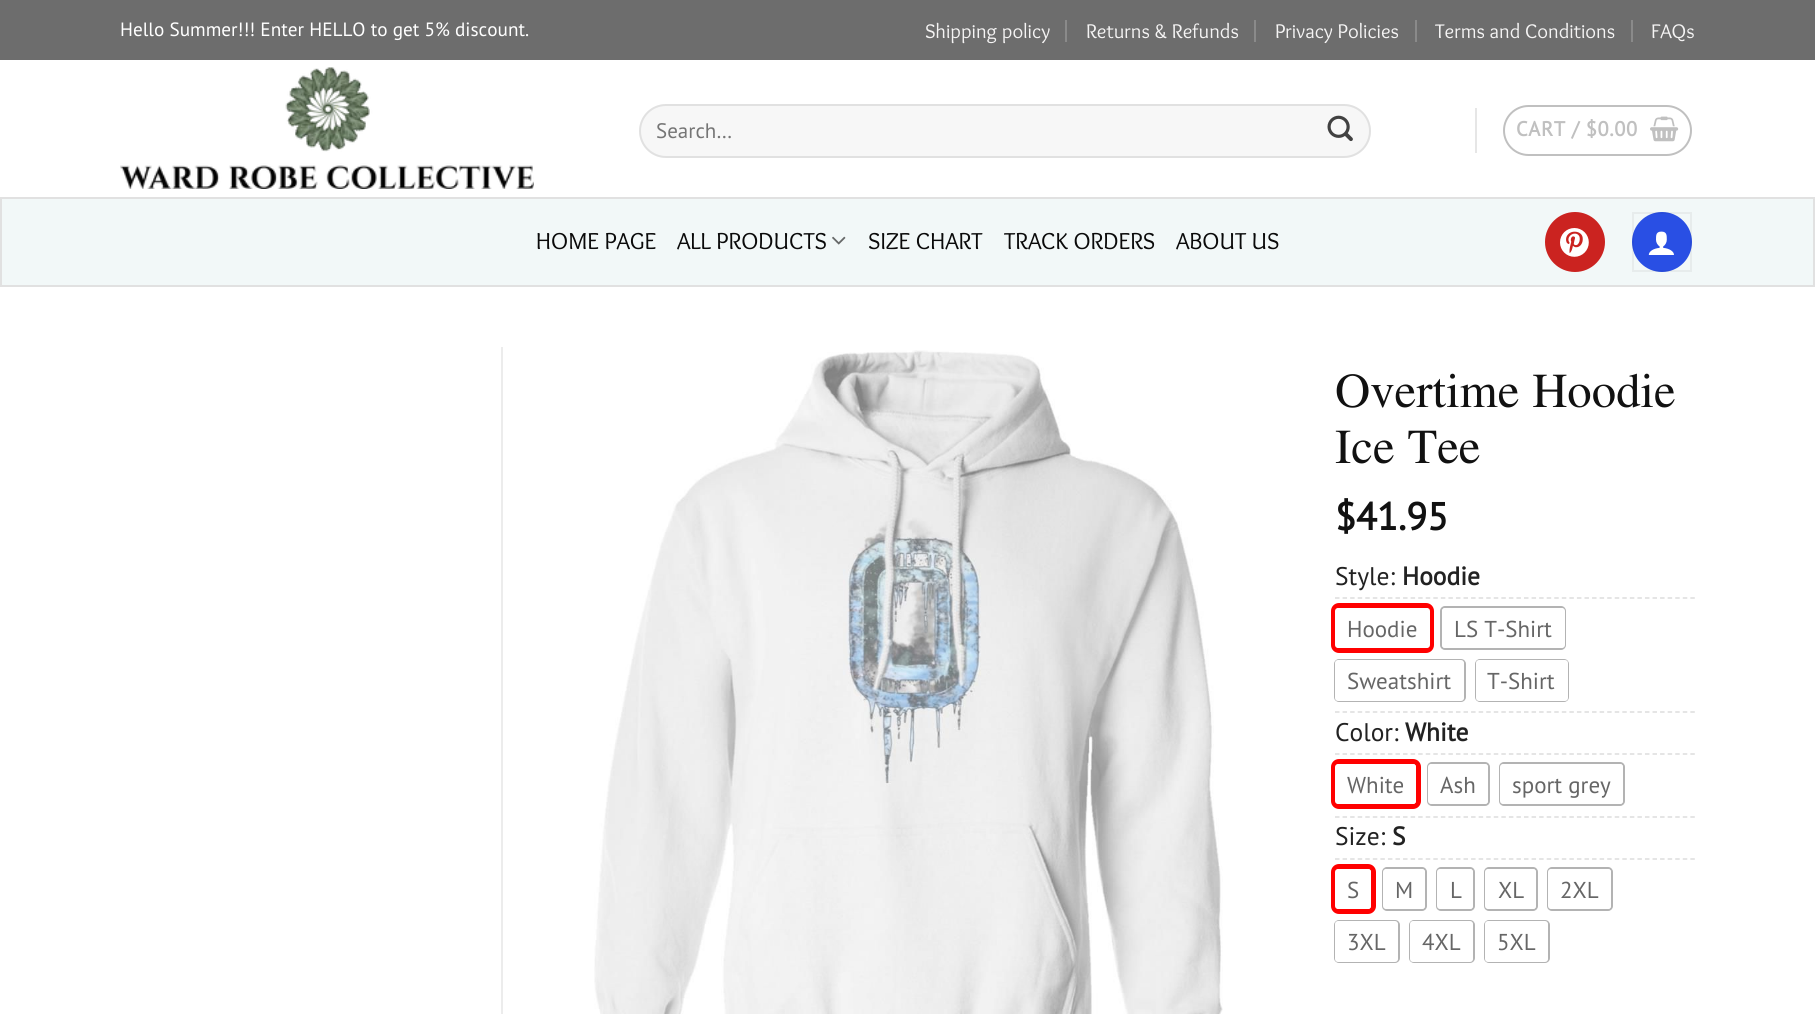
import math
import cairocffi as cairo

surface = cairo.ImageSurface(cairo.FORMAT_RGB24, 1815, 1014)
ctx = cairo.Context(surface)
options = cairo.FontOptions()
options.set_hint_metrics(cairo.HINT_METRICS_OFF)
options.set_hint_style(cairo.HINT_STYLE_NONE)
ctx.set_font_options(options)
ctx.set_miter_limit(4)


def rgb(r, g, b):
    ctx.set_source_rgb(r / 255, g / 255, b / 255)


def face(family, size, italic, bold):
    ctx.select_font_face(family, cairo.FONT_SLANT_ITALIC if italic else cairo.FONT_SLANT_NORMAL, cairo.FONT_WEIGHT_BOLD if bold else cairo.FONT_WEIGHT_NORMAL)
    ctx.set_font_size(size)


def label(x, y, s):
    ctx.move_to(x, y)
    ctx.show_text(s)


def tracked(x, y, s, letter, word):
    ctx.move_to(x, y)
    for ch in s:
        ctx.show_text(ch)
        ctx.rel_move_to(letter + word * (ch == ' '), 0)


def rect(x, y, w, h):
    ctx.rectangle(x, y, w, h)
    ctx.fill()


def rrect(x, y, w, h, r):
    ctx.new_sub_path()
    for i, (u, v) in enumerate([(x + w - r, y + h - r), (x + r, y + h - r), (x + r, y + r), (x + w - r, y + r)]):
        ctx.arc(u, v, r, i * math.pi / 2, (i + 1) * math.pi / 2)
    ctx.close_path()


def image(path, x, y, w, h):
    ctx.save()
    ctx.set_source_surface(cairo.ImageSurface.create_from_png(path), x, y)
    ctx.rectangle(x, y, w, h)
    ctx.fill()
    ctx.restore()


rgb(255, 255, 255)
ctx.paint()
rgb(109, 109, 109)
rect(0, 0, 1815, 60)
face('PT Sans', 19.25, 0, 0)
rgb(255, 255, 255)
label(120, 36, 'Hello Summer!!! Enter HELLO to get 5% discount.')
face('Overlock', 20.5, 0, 0)
rgb(245, 244, 244)
label(925, 38, 'Shipping policy')
rgb(138, 138, 138)
rect(1065, 20, 2, 22)
rgb(245, 244, 244)
label(1086, 38, 'Returns & Refunds')
rgb(138, 138, 138)
rect(1254, 20, 2, 22)
rgb(245, 244, 244)
label(1275, 38, 'Privacy Policies')
rgb(138, 138, 138)
rect(1415, 20, 2, 22)
rgb(245, 244, 244)
label(1435, 38, 'Terms and Conditions')
rgb(138, 138, 138)
rect(1631, 20, 2, 22)
rgb(245, 244, 244)
label(1651, 38, 'FAQs')
image('image0.png', 120, 67, 414, 122)
rgb(247, 247, 247)
rrect(639, 104, 732, 54, 27)
ctx.fill()
rrect(640, 105, 730, 52, 26)
ctx.set_source_rgba(0, 0, 0, 0.09)
ctx.stroke()
face('PT Sans', 21, 0, 0)
rgb(117, 117, 117)
label(656, 138, 'Search…')
image('image1.png', 1327, 115, 26, 27)
rgb(230, 230, 230)
rect(1475, 108, 2, 45)
rrect(1504, 106, 187, 49, 24.5)
rgb(192, 192, 192)
ctx.stroke()
face('PT Sans', 20.5, 0, 1)
tracked(1516, 136, 'CART / $0.00', 0.6, 0)
image('image2.png', 1650, 116, 29, 26)
rgb(242, 248, 248)
ctx.rectangle(1, 198, 1813, 88)
ctx.fill_preserve()
rgb(225, 225, 225)
ctx.stroke()
face('Overlock', 24, 0, 0)
rgb(10, 10, 10)
label(536, 249, 'HOME PAGE')
label(677, 249, 'ALL PRODUCTS')
image('image3.png', 832, 236, 14, 9)
label(868, 249, 'SIZE CHART')
label(1004, 249, 'TRACK ORDERS')
label(1176, 249, 'ABOUT US')
rgb(203, 35, 32)
ctx.new_path()
ctx.arc(1575, 242, 29, 0, 2 * math.pi)
ctx.fill_preserve()
ctx.stroke()
image('image4.png', 1560, 228, 29, 29)
rgb(41, 79, 228)
ctx.arc(1662, 242, 30, 0, 2 * math.pi)
ctx.fill()
ctx.rectangle(1633, 213, 58, 58)
ctx.set_source_rgba(0, 0, 0, 0.05)
ctx.stroke()
image('image5.png', 1648, 231, 26, 24)
rgb(236, 236, 236)
rect(501, 347, 2, 667)
image('image6.png', 594, 350, 629, 664)
face('Jomolhari', 43.75, 0, 0)
rgb(17, 17, 17)
label(1335, 407, 'Overtime Hoodie')
label(1335, 463, 'Ice Tee')
face('PT Sans', 38.5, 0, 1)
label(1335, 530, '$41.95')
face('PT Sans', 25.5, 0, 0)
rgb(34, 34, 34)
label(1335, 585, 'Style:')
face('PT Sans', 25.5, 0, 1)
label(1402, 585, 'Hoodie')
ctx.new_path()
ctx.move_to(1335, 598)
ctx.line_to(1695, 598)
rgb(221, 221, 221)
ctx.set_line_width(1.5)
ctx.set_dash([4.5, 3.06])
ctx.stroke()
rrect(1333.5, 605.5, 98, 45, 5.5)
rgb(255, 0, 0)
ctx.set_line_width(5)
ctx.set_dash([])
ctx.stroke()
rgb(255, 255, 255)
rrect(1335, 608, 95, 40, 3)
ctx.fill()
face('PT Sans', 23, 0, 0)
rgb(102, 102, 102)
label(1347, 637, 'Hoodie')
rrect(1441, 607, 124, 42, 4)
rgb(179, 179, 179)
ctx.set_line_width(2)
ctx.stroke()
rgb(255, 255, 255)
rrect(1442, 608, 123, 40, 3)
ctx.fill()
rgb(102, 102, 102)
label(1454, 637, 'LS T-Shirt')
rrect(1335, 660, 130, 41, 4)
rgb(179, 179, 179)
ctx.stroke()
rgb(255, 255, 255)
rrect(1335, 660, 129, 41, 3)
ctx.fill()
rgb(102, 102, 102)
label(1347, 689, 'Sweatshirt')
rrect(1476, 660, 92, 41, 4)
rgb(179, 179, 179)
ctx.stroke()
rgb(255, 255, 255)
rrect(1476, 660, 92, 41, 3)
ctx.fill()
rgb(102, 102, 102)
label(1487, 689, 'T-Shirt')
ctx.new_path()
ctx.move_to(1335, 712)
ctx.line_to(1695, 712)
rgb(221, 221, 221)
ctx.set_line_width(1.5)
ctx.set_dash([4.5, 3.06])
ctx.stroke()
face('PT Sans', 25.5, 0, 0)
rgb(34, 34, 34)
label(1335, 741, 'Color:')
face('PT Sans', 25.5, 0, 1)
label(1405, 741, 'White')
ctx.new_path()
ctx.move_to(1335, 754)
ctx.line_to(1695, 754)
rgb(221, 221, 221)
ctx.stroke()
rrect(1333.5, 761.5, 85, 45, 5.5)
rgb(255, 0, 0)
ctx.set_line_width(5)
ctx.set_dash([])
ctx.stroke()
rgb(255, 255, 255)
rrect(1335, 764, 81, 40, 3)
ctx.fill()
face('PT Sans', 23, 0, 0)
rgb(102, 102, 102)
label(1347, 793, 'White')
rrect(1428, 763, 61, 42, 4)
rgb(179, 179, 179)
ctx.set_line_width(2)
ctx.stroke()
rgb(255, 255, 255)
rrect(1428, 764, 60, 40, 3)
ctx.fill()
rgb(102, 102, 102)
label(1440, 793, 'Ash')
rrect(1500, 763, 124, 42, 4)
rgb(179, 179, 179)
ctx.stroke()
rgb(255, 255, 255)
rrect(1500, 764, 123, 40, 3)
ctx.fill()
rgb(102, 102, 102)
label(1512, 793, 'sport grey')
ctx.new_path()
ctx.move_to(1335, 817)
ctx.line_to(1695, 817)
rgb(221, 221, 221)
ctx.set_line_width(1.5)
ctx.set_dash([4.5, 3.06])
ctx.stroke()
face('PT Sans', 25.5, 0, 0)
rgb(34, 34, 34)
label(1335, 845, 'Size:')
face('PT Sans', 25.5, 0, 1)
label(1392, 845, 'S')
ctx.new_path()
ctx.move_to(1335, 859)
ctx.line_to(1695, 859)
rgb(221, 221, 221)
ctx.stroke()
rrect(1333.5, 866.5, 40, 45, 5.5)
rgb(255, 0, 0)
ctx.set_line_width(5)
ctx.set_dash([])
ctx.stroke()
rgb(255, 255, 255)
rrect(1335, 869, 36, 40, 3)
ctx.fill()
face('PT Sans', 23, 0, 0)
rgb(102, 102, 102)
label(1347, 898, 'S')
rrect(1383, 868, 43, 42, 4)
rgb(179, 179, 179)
ctx.set_line_width(2)
ctx.stroke()
rgb(255, 255, 255)
rrect(1383, 869, 42, 40, 3)
ctx.fill()
rgb(102, 102, 102)
label(1395, 898, 'M')
rrect(1437, 868, 37, 42, 4)
rgb(179, 179, 179)
ctx.stroke()
rgb(255, 255, 255)
rrect(1437, 869, 36, 40, 3)
ctx.fill()
rgb(102, 102, 102)
label(1450, 898, 'L')
rrect(1485, 868, 52, 42, 4)
rgb(179, 179, 179)
ctx.stroke()
rgb(255, 255, 255)
rrect(1485, 869, 51, 40, 3)
ctx.fill()
rgb(102, 102, 102)
label(1498, 898, 'XL')
rrect(1548, 868, 64, 42, 4)
rgb(179, 179, 179)
ctx.stroke()
rgb(255, 255, 255)
rrect(1548, 869, 63, 40, 3)
ctx.fill()
rgb(102, 102, 102)
label(1560, 898, '2XL')
rrect(1335, 921, 64, 41, 4)
rgb(179, 179, 179)
ctx.stroke()
rgb(255, 255, 255)
rrect(1335, 921, 63, 41, 3)
ctx.fill()
rgb(102, 102, 102)
label(1347, 950, '3XL')
rrect(1410, 921, 64, 41, 4)
rgb(179, 179, 179)
ctx.stroke()
rgb(255, 255, 255)
rrect(1410, 921, 63, 41, 3)
ctx.fill()
rgb(102, 102, 102)
label(1422, 950, '4XL')
rrect(1485, 921, 64, 41, 4)
rgb(179, 179, 179)
ctx.stroke()
rgb(255, 255, 255)
rrect(1485, 921, 63, 41, 3)
ctx.fill()
rgb(102, 102, 102)
label(1497, 950, '5XL')
surface.write_to_png('render.png')
